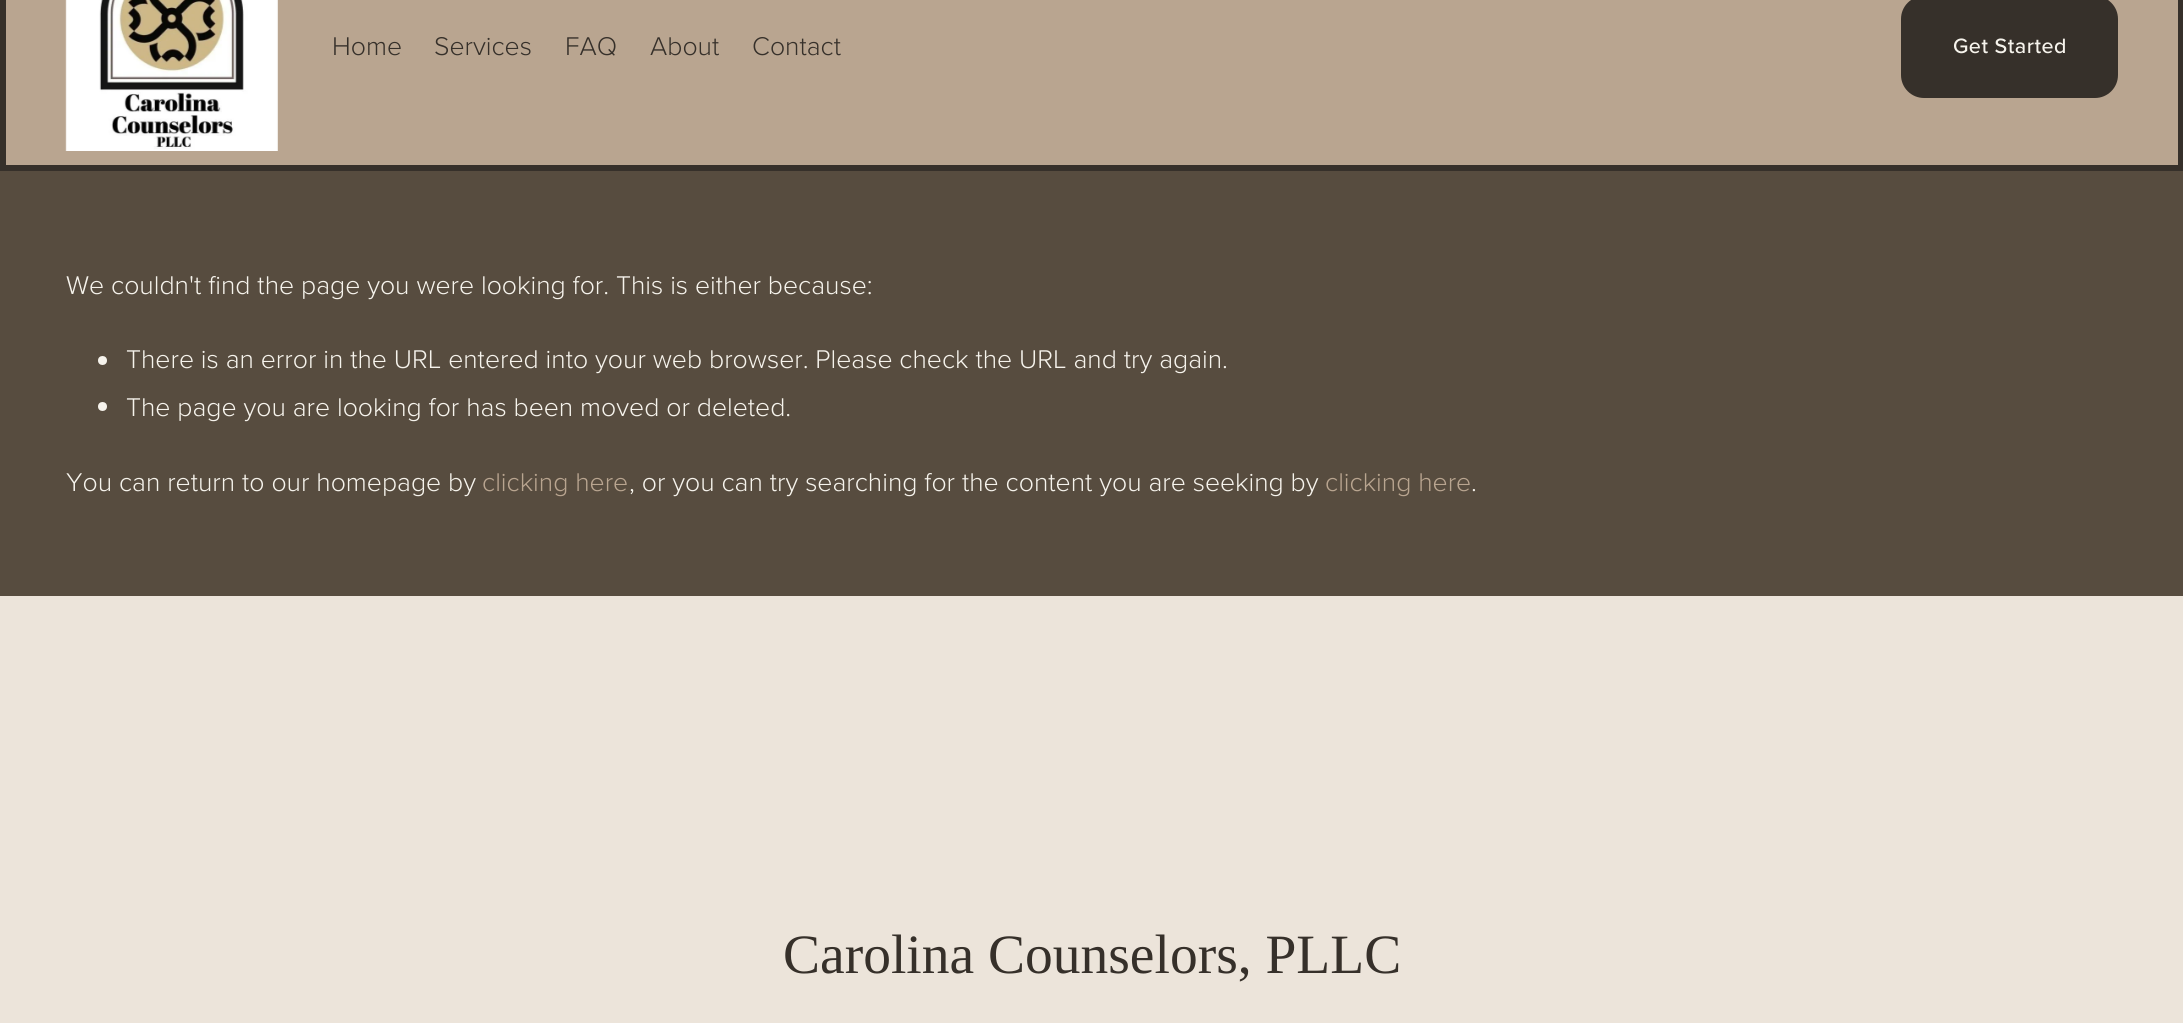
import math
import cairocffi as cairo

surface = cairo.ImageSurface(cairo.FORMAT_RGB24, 2183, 1023)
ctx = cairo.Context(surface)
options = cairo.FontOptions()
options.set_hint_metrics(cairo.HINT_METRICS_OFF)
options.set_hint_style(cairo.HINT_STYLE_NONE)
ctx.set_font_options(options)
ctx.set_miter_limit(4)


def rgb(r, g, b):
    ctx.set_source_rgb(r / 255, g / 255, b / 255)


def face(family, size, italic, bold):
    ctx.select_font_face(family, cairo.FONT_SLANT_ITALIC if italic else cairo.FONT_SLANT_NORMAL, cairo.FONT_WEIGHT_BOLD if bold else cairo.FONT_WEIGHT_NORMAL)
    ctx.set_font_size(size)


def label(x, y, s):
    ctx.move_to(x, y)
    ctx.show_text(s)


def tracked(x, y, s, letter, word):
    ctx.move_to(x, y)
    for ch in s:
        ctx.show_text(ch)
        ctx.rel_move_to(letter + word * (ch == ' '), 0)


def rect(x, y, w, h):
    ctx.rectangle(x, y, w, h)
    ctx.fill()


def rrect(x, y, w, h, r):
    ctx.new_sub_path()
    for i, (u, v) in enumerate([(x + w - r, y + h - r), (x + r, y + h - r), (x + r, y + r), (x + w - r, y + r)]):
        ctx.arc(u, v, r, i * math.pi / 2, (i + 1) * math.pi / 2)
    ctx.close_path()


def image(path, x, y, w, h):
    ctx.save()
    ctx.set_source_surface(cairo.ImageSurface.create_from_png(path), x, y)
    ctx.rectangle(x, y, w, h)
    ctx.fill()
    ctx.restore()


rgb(87, 76, 63)
ctx.paint()
rgb(185, 165, 144)
ctx.rectangle(3, -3, 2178, 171)
ctx.fill_preserve()
rgb(54, 48, 42)
ctx.set_line_width(6)
ctx.stroke()
image('image0.png', 65, 0, 213, 151)
face('Proxima Nova Light', 26.6, 0, 0)
label(332, 55, 'Home')
label(434, 55, 'Services')
label(565, 55, 'FAQ')
label(650, 55, 'About')
label(752, 55, 'Contact')
rrect(1901, -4, 217, 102, 23)
ctx.fill()
face('Proxima Nova Medium', 21.5, 0, 0)
rgb(246, 243, 236)
tracked(1953, 53, 'Get Started', 0.5, 0)
face('Proxima Nova Light', 26.6, 0, 0)
label(66, 294, 'We couldn\'t find the page you were looking for. This is either because:')
ctx.new_path()
ctx.arc(102.5, 360.5, 4.5, 0, 2 * math.pi)
ctx.fill()
label(126, 368, 'There is an error in the URL entered into your web browser. Please check the URL and try again.')
ctx.new_path()
ctx.arc(102.5, 406.5, 4.5, 0, 2 * math.pi)
ctx.fill()
label(126, 416, 'The page you are looking for has been moved or deleted.')
label(66, 491, 'You can return to our homepage by')
rgb(185, 165, 144)
label(482, 491, 'clicking here')
rgb(246, 243, 236)
label(629, 491, ', or you can try searching for the content you are seeking by')
rgb(185, 165, 144)
label(1325, 491, 'clicking here')
rgb(246, 243, 236)
label(1471, 491, '.')
rgb(236, 228, 218)
rect(0, 596, 2183, 427)
face('Liberation Serif', 55.5, 0, 0)
rgb(54, 48, 42)
label(783, 973, 'Carolina Counselors, PLLC')
surface.write_to_png('render.png')
